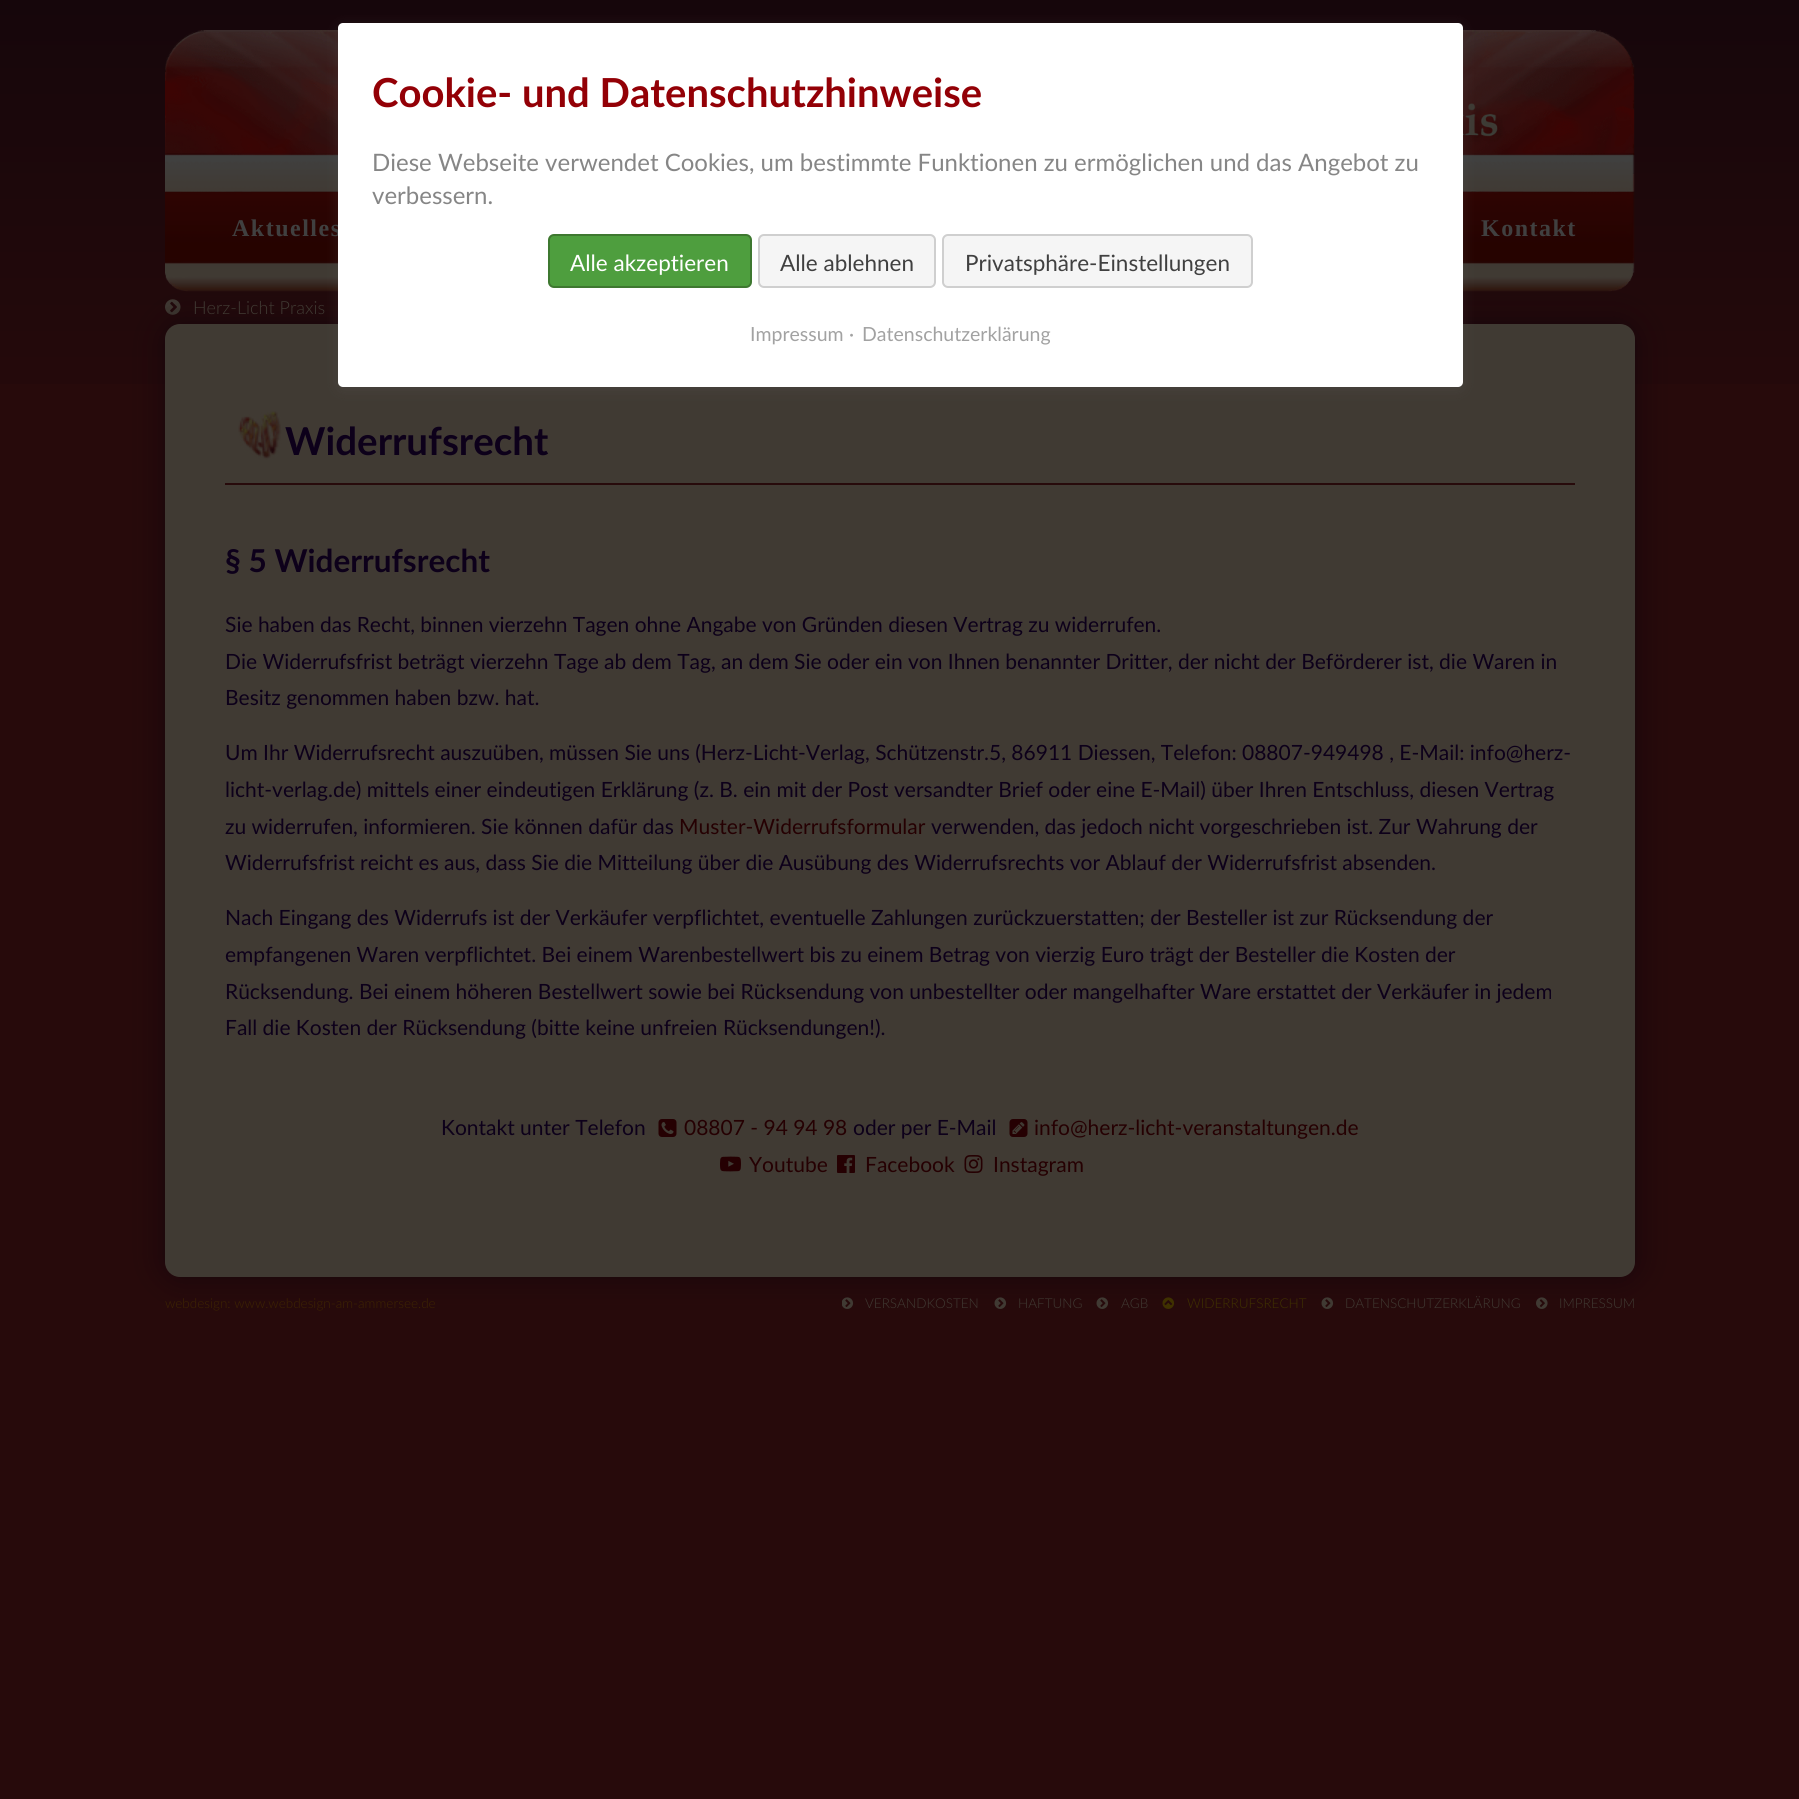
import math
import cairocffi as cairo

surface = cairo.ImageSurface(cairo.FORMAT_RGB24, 1799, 1799)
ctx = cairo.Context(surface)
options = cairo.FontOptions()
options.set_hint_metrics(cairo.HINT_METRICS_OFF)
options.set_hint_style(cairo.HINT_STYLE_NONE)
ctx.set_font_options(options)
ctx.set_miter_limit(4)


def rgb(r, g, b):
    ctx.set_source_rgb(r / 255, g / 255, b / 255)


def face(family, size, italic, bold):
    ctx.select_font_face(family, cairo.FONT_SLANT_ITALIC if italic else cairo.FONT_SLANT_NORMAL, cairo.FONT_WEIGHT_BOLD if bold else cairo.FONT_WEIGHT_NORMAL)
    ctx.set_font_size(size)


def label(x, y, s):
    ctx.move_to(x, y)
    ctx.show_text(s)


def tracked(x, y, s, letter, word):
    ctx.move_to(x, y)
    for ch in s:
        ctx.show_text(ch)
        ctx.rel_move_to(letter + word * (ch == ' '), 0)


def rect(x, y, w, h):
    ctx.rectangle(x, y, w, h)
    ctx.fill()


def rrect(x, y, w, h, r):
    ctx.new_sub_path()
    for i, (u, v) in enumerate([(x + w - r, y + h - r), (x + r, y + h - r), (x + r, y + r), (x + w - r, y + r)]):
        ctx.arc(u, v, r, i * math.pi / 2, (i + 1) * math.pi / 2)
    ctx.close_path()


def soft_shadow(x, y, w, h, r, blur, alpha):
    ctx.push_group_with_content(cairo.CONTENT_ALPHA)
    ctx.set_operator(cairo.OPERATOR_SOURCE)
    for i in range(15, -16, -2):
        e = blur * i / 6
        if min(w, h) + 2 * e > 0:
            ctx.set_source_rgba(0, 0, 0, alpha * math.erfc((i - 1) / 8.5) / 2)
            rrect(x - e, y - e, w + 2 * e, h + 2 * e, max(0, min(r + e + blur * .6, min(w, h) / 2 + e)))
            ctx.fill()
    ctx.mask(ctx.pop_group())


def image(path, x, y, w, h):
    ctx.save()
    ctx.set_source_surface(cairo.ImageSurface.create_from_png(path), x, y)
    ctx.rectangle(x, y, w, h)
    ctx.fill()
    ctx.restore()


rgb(39, 10, 11)
ctx.paint()
gradient = cairo.LinearGradient(900, 0, 900, 450)
gradient.add_color_stop_rgba(0, 0.086, 0.024, 0.043, 1)
gradient.add_color_stop_rgba(1, 0.153, 0.039, 0.043, 1)
ctx.set_source(gradient)
rect(0, 0, 1799, 384)
image('image0.png', 165, 30, 1470, 262)
image('image1.png', 165, 299, 16, 16)
rgb(22, 5, 11)
soft_shadow(165, 324, 1470, 953, 15, 15, 1)
rgb(64, 58, 51)
rrect(165, 324, 1470, 953, 15)
ctx.fill()
rgb(99, 99, 99)
soft_shadow(338, 26, 1125, 364, 5, 6, 0.2)
face('Liberation Serif', 24, 0, 1)
rgb(64, 64, 64)
tracked(232, 236, 'Aktuelles', 1.5, 0)
rgb(255, 255, 255)
rrect(338, 23, 1125, 364, 5)
ctx.fill()
face('Lato', 40, 0, 1)
rgb(147, 0, 6)
label(372, 107, 'Cookie- und Datenschutzhinweise')
face('Lato', 24, 0, 0)
rgb(134, 134, 134)
label(372, 171, 'Diese Webseite verwendet Cookies, um bestimmte Funktionen zu ermöglichen und das Angebot zu')
label(372, 204, 'verbessern.')
rgb(78, 158, 62)
rrect(549, 235, 202, 52, 5)
ctx.fill_preserve()
rgb(62, 120, 48)
ctx.stroke()
face('Lato', 22.5, 0, 0)
rgb(255, 255, 255)
label(570, 271, 'Alle akzeptieren')
rgb(245, 245, 245)
rrect(759, 235, 176, 52, 5)
ctx.fill_preserve()
rgb(207, 207, 207)
ctx.stroke()
rgb(64, 64, 64)
label(780, 271, 'Alle ablehnen')
rgb(245, 245, 245)
rrect(943, 235, 309, 52, 5)
ctx.fill_preserve()
rgb(207, 207, 207)
ctx.stroke()
rgb(64, 64, 64)
label(965, 271, 'Privatsphäre-Einstellungen')
face('Lato', 19.5, 0, 0)
rgb(162, 162, 162)
label(750, 341, 'Impressum')
label(849, 341, '·')
label(862, 341, 'Datenschutzerklärung')
face('Liberation Serif', 24, 0, 1)
rgb(64, 64, 64)
tracked(1481, 236, 'Kontakt', 1.5, 0)
face('Lato Light', 18, 0, 0)
rgb(64, 58, 51)
label(193, 314, 'Herz-Licht Praxis')
image('image2.png', 238, 411, 44, 49)
rgb(39, 10, 11)
rect(225, 483, 1350, 2)
face('Lato', 38.5, 0, 1)
rgb(13, 0, 26)
label(285, 455, 'Widerrufsrecht')
face('Lato', 31.5, 0, 1)
label(225, 572, '§ 5 Widerrufsrecht')
face('Lato', 21, 0, 0)
label(225, 632, 'Sie haben das Recht, binnen vierzehn Tagen ohne Angabe von Gründen diesen Vertrag zu widerrufen.')
label(225, 669, 'Die Widerrufsfrist beträgt vierzehn Tage ab dem Tag, an dem Sie oder ein von Ihnen benannter Dritter, der nicht der Beförderer ist, die Waren in')
label(225, 705, 'Besitz genommen haben bzw. hat.')
label(225, 760, 'Um Ihr Widerrufsrecht auszuüben, müssen Sie uns (Herz-Licht-Verlag, Schützenstr.5, 86911 Diessen, Telefon: 08807-949498 , E-Mail: info@herz-')
label(225, 797, 'licht-verlag.de) mittels einer eindeutigen Erklärung (z. B. ein mit der Post versandter Brief oder eine E-Mail) über Ihren Entschluss, diesen Vertrag')
label(225, 834, 'zu widerrufen, informieren. Sie können dafür das')
rgb(37, 0, 2)
label(679, 834, 'Muster-Widerrufsformular')
rgb(13, 0, 26)
label(931, 834, 'verwenden, das jedoch nicht vorgeschrieben ist. Zur Wahrung der')
label(225, 870, 'Widerrufsfrist reicht es aus, dass Sie die Mitteilung über die Ausübung des Widerrufsrechts vor Ablauf der Widerrufsfrist absenden.')
label(225, 925, 'Nach Eingang des Widerrufs ist der Verkäufer verpflichtet, eventuelle Zahlungen zurückzuerstatten; der Besteller ist zur Rücksendung der')
label(225, 962, 'empfangenen Waren verpflichtet. Bei einem Warenbestellwert bis zu einem Betrag von vierzig Euro trägt der Besteller die Kosten der')
label(225, 999, 'Rücksendung. Bei einem höheren Bestellwert sowie bei Rücksendung von unbestellter oder mangelhafter Ware erstattet der Verkäufer in jedem')
label(225, 1035, 'Fall die Kosten der Rücksendung (bitte keine unfreien Rücksendungen!).')
label(441, 1135, 'Kontakt unter Telefon')
image('image3.png', 658, 1119, 19, 18)
rgb(37, 0, 2)
label(684, 1135, '08807 - 94 94 98')
rgb(13, 0, 26)
label(853, 1135, 'oder per E-Mail')
image('image4.png', 1009, 1119, 19, 18)
rgb(37, 0, 2)
label(1034, 1135, 'info@herz-licht-veranstaltungen.de')
image('image5.png', 720, 1156, 21, 16)
label(749, 1172, 'Youtube')
image('image6.png', 837, 1155, 18, 18)
label(865, 1172, 'Facebook')
image('image7.png', 964, 1155, 19, 18)
label(993, 1172, 'Instagram')
face('Lato Light', 13.5, 0, 0)
rgb(61, 36, 1)
label(165, 1308, 'webdesign: www.webdesign-am-ammersee.de')
image('image8.png', 842, 1297, 12, 12)
rgb(64, 58, 51)
label(865, 1308, 'VERSANDKOSTEN')
image('image9.png', 994, 1297, 13, 12)
label(1018, 1308, 'HAFTUNG')
image('image9.png', 1096, 1297, 13, 12)
label(1121, 1308, 'AGB')
image('image10.png', 1162, 1297, 13, 12)
rgb(63, 49, 0)
label(1187, 1308, 'WIDERRUFSRECHT')
image('image9.png', 1321, 1297, 13, 12)
rgb(64, 58, 51)
label(1345, 1308, 'DATENSCHUTZERKLÄRUNG')
image('image11.png', 1536, 1297, 12, 12)
label(1559, 1308, 'IMPRESSUM')
surface.write_to_png('render.png')
